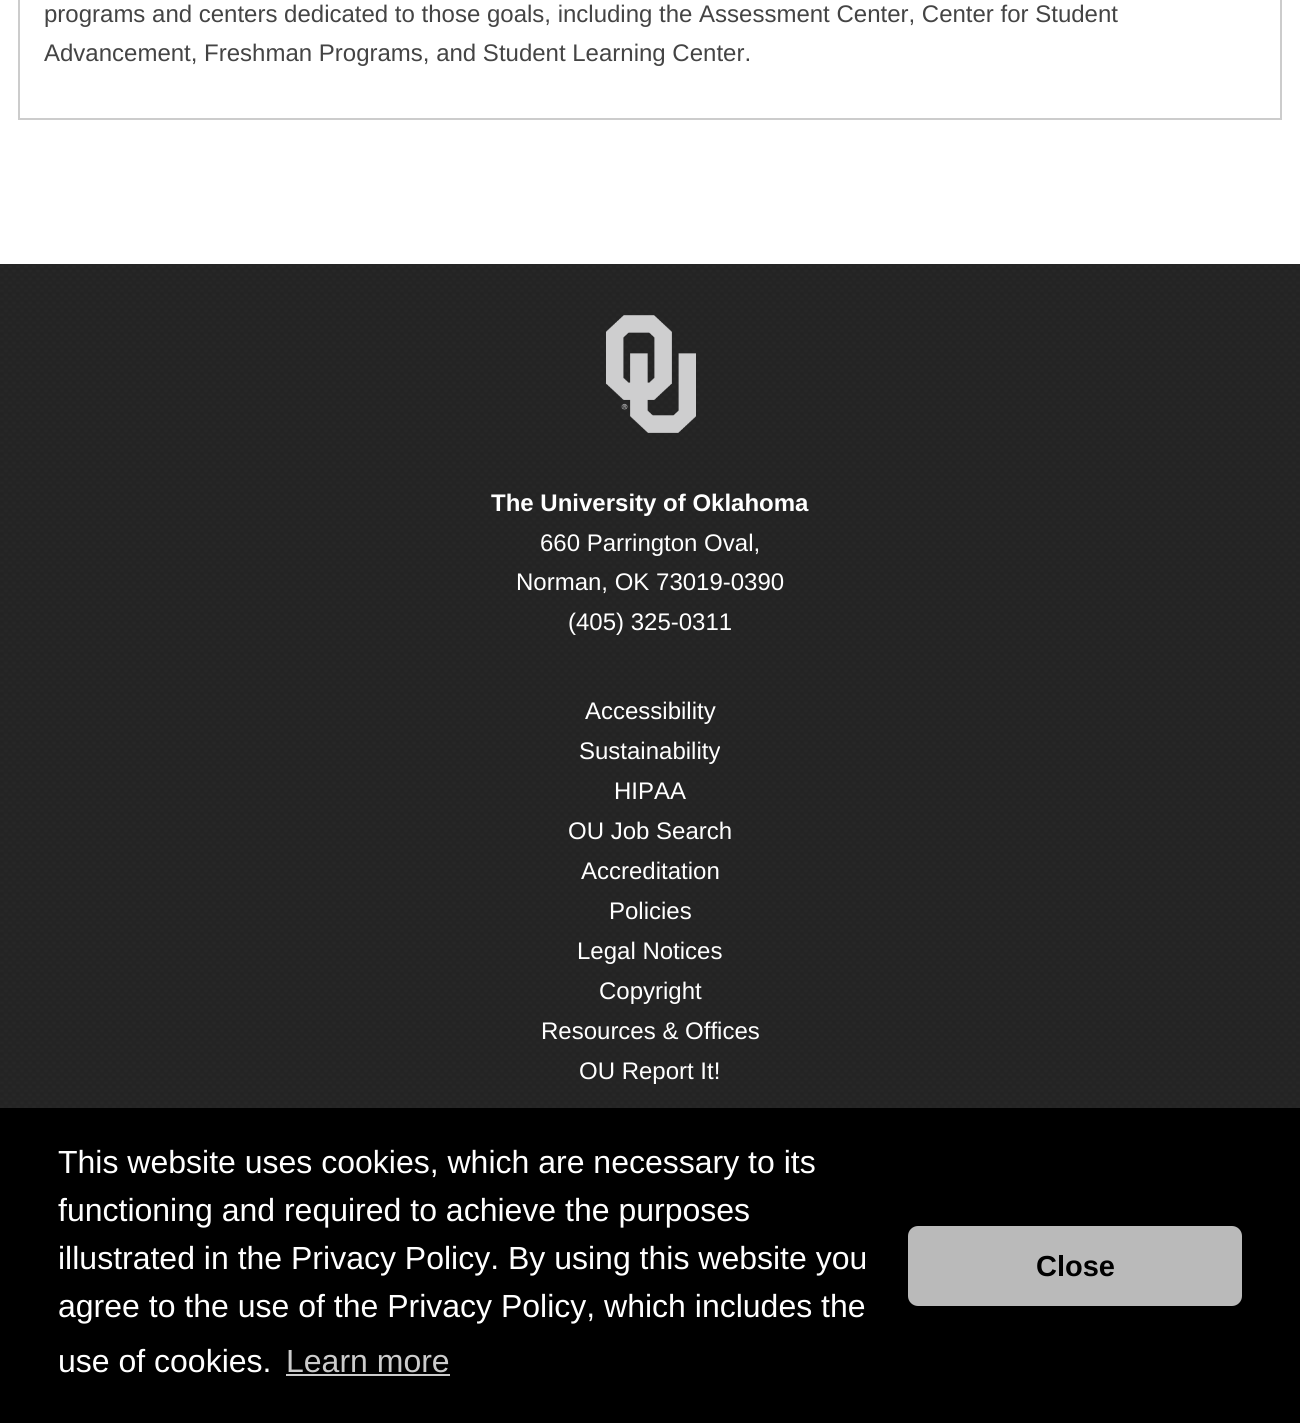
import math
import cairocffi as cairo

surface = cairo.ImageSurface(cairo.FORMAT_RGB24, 1300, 1423)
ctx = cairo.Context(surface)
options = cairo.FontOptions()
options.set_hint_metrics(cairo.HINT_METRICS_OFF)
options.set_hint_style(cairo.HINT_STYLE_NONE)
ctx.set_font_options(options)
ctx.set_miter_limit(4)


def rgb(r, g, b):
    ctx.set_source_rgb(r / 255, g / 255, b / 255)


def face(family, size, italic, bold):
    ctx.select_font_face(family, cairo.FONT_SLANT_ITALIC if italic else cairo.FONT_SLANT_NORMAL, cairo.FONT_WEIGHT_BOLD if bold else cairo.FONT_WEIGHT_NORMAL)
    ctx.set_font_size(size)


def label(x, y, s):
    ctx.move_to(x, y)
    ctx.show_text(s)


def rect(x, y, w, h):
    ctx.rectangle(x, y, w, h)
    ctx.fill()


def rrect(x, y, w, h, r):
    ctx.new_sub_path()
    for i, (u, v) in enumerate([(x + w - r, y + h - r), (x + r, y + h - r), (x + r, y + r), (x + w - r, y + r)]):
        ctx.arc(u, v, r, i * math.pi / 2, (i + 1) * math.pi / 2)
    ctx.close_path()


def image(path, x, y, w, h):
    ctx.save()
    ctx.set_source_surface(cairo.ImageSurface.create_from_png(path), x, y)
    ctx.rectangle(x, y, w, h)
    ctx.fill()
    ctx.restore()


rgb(255, 255, 255)
ctx.paint()
ctx.rectangle(19, -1, 1262, 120)
rgb(204, 204, 204)
ctx.stroke()
face('Liberation Sans', 24, 0, 0)
rgb(68, 68, 68)
label(44, 22, 'programs and centers dedicated to those goals, including the Assessment Center, Center for Student')
label(44, 61, 'Advancement, Freshman Programs, and Student Learning Center.')
image('image0.png', 0, 264, 1300, 844)
image('image1.png', 606, 315, 90, 118)
face('Liberation Sans', 24, 0, 1)
rgb(255, 255, 255)
label(491, 511, 'The University of Oklahoma')
face('Liberation Sans', 24, 0, 0)
label(540, 551, '660 Parrington Oval,')
label(516, 590, 'Norman, OK 73019-0390')
label(568, 630, '(405) 325-0311')
label(585, 719, 'Accessibility')
label(579, 759, 'Sustainability')
label(614, 799, 'HIPAA')
label(568, 839, 'OU Job Search')
label(581, 879, 'Accreditation')
label(609, 919, 'Policies')
label(577, 959, 'Legal Notices')
label(599, 999, 'Copyright')
label(541, 1039, 'Resources & Offices')
label(579, 1079, 'OU Report It!')
rgb(0, 0, 0)
rect(0, 1108, 1300, 315)
face('Liberation Sans', 32, 0, 0)
rgb(255, 255, 255)
label(58, 1173, 'This website uses cookies, which are necessary to its')
label(58, 1221, 'functioning and required to achieve the purposes')
label(58, 1269, 'illustrated in the Privacy Policy. By using this website you')
label(58, 1317, 'agree to the use of the Privacy Policy, which includes the')
label(58, 1372, 'use of cookies.')
rgb(204, 204, 204)
label(286, 1372, 'Learn more')
rect(286, 1374, 164, 2)
rgb(186, 186, 186)
rrect(908, 1226, 334, 80, 10)
ctx.fill()
face('Liberation Sans', 29, 0, 1)
rgb(0, 0, 0)
label(1036, 1276, 'Close')
surface.write_to_png('render.png')
